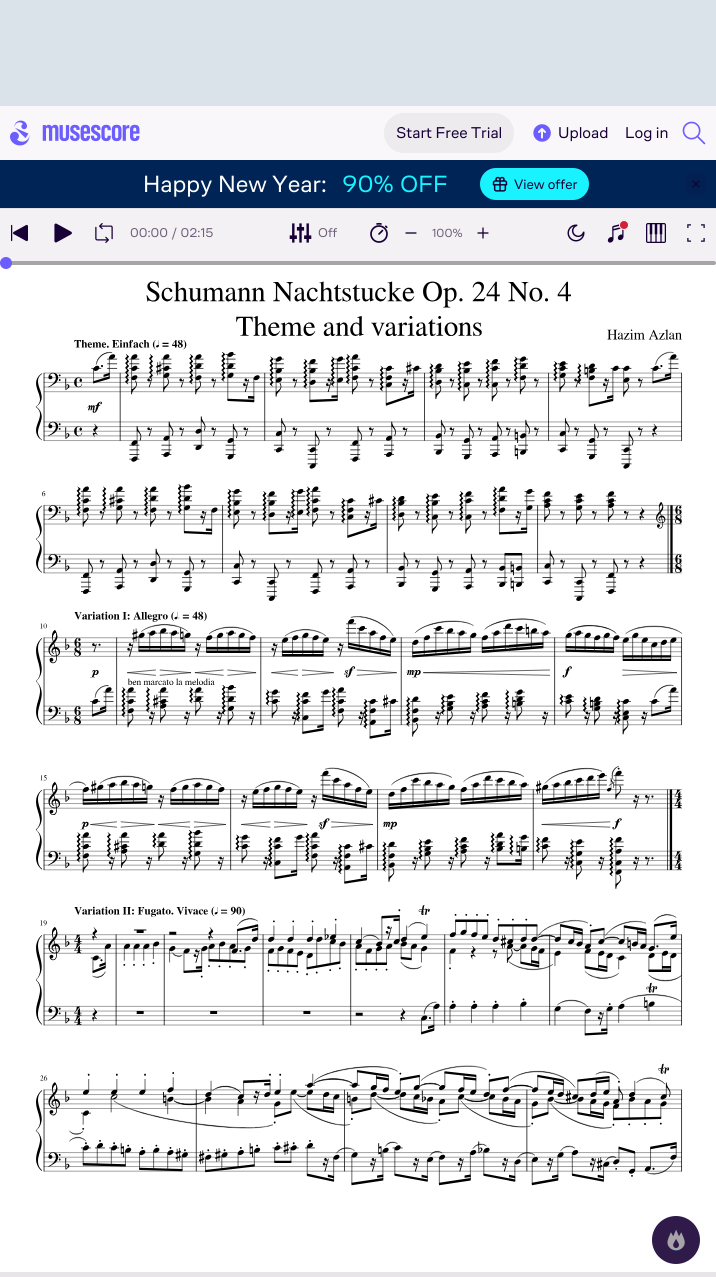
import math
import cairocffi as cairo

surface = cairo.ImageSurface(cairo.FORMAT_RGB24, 716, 1277)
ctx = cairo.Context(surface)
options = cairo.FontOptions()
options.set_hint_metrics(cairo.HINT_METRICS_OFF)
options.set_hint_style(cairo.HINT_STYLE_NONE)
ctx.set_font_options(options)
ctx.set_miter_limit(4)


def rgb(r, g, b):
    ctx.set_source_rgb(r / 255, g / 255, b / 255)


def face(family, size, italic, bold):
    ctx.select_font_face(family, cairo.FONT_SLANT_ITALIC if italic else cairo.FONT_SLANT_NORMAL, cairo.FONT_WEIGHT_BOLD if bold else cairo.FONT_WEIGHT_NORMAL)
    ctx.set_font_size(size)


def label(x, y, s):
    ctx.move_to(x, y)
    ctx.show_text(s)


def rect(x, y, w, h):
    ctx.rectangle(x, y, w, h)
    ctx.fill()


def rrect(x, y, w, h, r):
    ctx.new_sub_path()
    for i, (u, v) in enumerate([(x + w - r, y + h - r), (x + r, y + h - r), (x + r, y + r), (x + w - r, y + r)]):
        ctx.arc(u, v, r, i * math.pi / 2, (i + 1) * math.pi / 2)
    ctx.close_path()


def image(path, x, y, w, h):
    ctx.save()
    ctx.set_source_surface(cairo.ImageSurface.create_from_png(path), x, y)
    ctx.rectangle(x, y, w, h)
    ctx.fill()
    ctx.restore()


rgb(249, 247, 250)
ctx.paint()
rgb(226, 222, 230)
rect(0, 208, 716, 1)
rgb(218, 227, 233)
rect(0, 0, 716, 106)
image('image0.png', 10, 120, 130, 26)
rgb(237, 235, 238)
rrect(384, 113, 130, 40, 20)
ctx.fill()
face('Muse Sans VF', 16, 0, 0)
rgb(24, 0, 54)
label(396, 138, 'Start Free Trial')
image('image1.png', 533, 124, 18, 18)
label(558, 138, 'Upload')
label(625, 138, 'Log in')
image('image2.png', 682, 121, 24, 24)
rgb(0, 36, 85)
rect(0, 160, 716, 48)
face('Muse Sans VF', 24, 0, 0)
rgb(255, 255, 255)
label(143, 192, 'Happy')
label(218, 192, 'New')
label(272, 192, 'Year:')
rgb(25, 243, 255)
label(342, 192, '90%')
label(400, 192, 'OFF')
rrect(480, 168, 109, 32, 16)
ctx.fill()
image('image3.png', 492, 176, 16, 16)
face('Muse Sans VF', 14, 0, 0)
rgb(24, 0, 54)
label(514, 189, 'View offer')
rgb(2, 32, 82)
ctx.new_path()
ctx.arc(696, 184, 12, 0, 2 * math.pi)
ctx.fill()
image('image4.png', 692, 180, 8, 8)
rgb(231, 229, 232)
rect(0, 1272, 716, 5)
rgb(255, 255, 255)
rect(0, 261, 716, 1011)
rgb(167, 164, 169)
rrect(0, 261, 716, 4, 2)
ctx.fill()
rgb(243, 241, 244)
rect(0, 209, 716, 52)
rgb(107, 93, 254)
ctx.arc(6, 263, 6, 0, 2 * math.pi)
ctx.fill()
image('image5.png', 11, 224, 17, 18)
image('image6.png', 54, 223, 18, 20)
image('image7.png', 95, 223, 18, 20)
face('Muse Sans VF', 13, 0, 0)
rgb(110, 95, 121)
label(130, 237, '00:00 / 02:15')
image('image8.png', 289, 223, 23, 20)
label(318, 237, 'Off')
image('image9.png', 370, 222, 18, 21)
image('image10.png', 405, 232, 12, 2)
face('Muse Sans VF', 12, 0, 0)
label(432, 237, '100%')
image('image11.png', 477, 227, 12, 12)
image('image12.png', 567, 224, 18, 18)
image('image13.png', 607, 224, 17, 19)
rgb(211, 33, 57)
ctx.arc(624, 225, 4.5, 0, 2 * math.pi)
ctx.fill_preserve()
rgb(249, 247, 250)
ctx.set_line_width(1)
ctx.stroke()
image('image14.png', 646, 223, 20, 20)
image('image15.png', 687, 224, 18, 18)
image('image16.png', 35, 281, 648, 905)
rgb(47, 26, 74)
ctx.arc(676, 1240, 24, 0, 2 * math.pi)
ctx.fill()
image('image17.png', 667, 1229, 18, 22)
surface.write_to_png('render.png')
